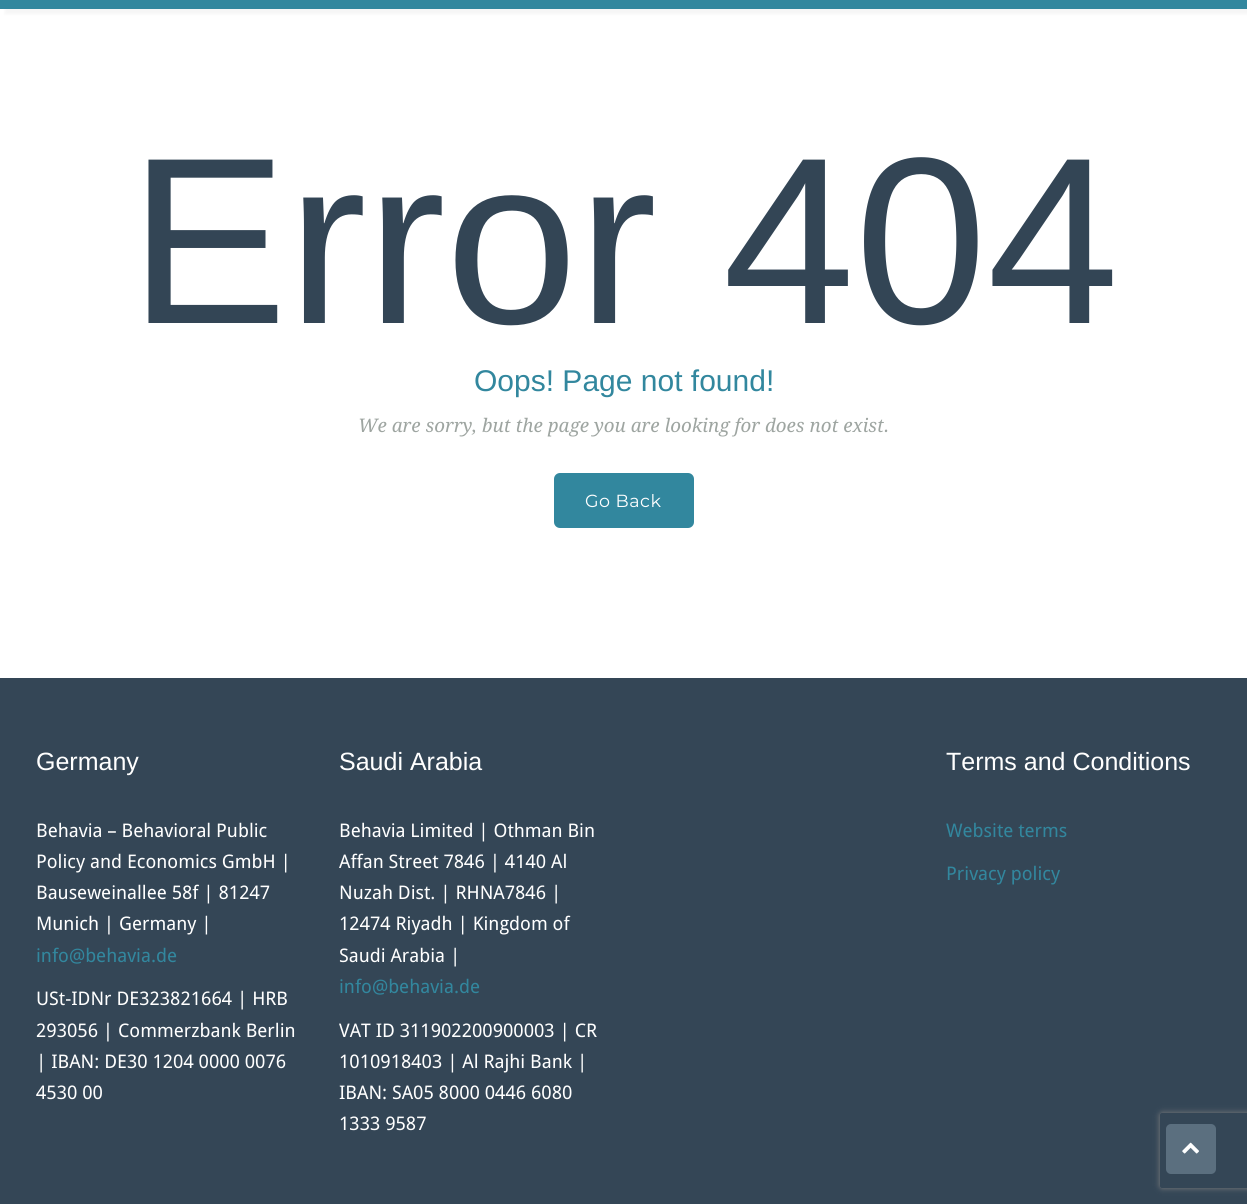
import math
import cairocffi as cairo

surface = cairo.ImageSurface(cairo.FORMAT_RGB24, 1247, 1204)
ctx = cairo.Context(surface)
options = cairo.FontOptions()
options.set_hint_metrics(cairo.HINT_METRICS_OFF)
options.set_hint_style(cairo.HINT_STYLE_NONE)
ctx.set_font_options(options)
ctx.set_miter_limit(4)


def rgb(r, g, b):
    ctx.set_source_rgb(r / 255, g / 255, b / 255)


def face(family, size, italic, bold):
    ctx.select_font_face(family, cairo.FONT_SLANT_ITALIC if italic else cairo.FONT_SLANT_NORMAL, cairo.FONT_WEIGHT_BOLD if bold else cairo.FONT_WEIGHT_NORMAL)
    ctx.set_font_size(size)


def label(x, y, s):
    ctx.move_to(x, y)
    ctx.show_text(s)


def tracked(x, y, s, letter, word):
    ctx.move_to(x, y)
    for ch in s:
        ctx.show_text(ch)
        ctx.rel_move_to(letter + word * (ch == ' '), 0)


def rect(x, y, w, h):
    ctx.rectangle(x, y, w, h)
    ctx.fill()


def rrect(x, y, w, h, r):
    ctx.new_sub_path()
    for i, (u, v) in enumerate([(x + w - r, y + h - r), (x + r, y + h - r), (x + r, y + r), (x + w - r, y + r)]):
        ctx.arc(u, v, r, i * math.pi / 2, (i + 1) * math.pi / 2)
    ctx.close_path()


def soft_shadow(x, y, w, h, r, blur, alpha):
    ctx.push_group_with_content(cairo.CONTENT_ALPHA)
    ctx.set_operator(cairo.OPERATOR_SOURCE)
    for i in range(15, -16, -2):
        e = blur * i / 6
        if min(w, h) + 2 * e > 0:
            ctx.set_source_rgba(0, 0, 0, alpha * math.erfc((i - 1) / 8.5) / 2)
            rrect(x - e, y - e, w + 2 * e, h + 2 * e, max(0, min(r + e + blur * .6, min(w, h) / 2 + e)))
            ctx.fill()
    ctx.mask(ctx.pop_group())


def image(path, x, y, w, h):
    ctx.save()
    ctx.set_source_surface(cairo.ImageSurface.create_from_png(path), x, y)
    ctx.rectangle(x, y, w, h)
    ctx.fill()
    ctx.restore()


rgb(255, 255, 255)
ctx.paint()
rgb(0, 0, 0)
soft_shadow(5, -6, 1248, 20, 0, 2, 0.04)
rgb(50, 135, 158)
rect(0, 0, 1247, 9)
face('Liberation Sans', 237.5, 0, 0)
rgb(51, 69, 85)
label(129, 323, 'Error 404')
face('Liberation Sans', 30, 0, 0)
rgb(50, 135, 158)
label(474, 391, 'Oops! Page not found!')
face('Droid Serif', 18.75, 1, 0)
rgb(158, 165, 161)
label(358, 432, 'We are sorry, but the page you are looking for does not exist.')
rgb(50, 135, 158)
rrect(554, 473, 140, 55, 6)
ctx.fill()
face('Montserrat', 17.5, 0, 0)
rgb(255, 255, 255)
tracked(585, 507, 'Go Back', 0.5, 0)
rgb(52, 70, 86)
rect(0, 678, 1247, 526)
face('Liberation Sans', 25, 0, 0)
rgb(255, 255, 255)
label(36, 770, 'Germany')
face('Droid Sans', 18.75, 0, 0)
label(36, 837, 'Behavia – Behavioral Public')
label(36, 868, 'Policy and Economics GmbH |')
label(36, 899, 'Bauseweinallee 58f | 81247')
label(36, 930, 'Munich | Germany |')
rgb(50, 135, 158)
label(36, 962, 'info@behavia.de')
rgb(255, 255, 255)
label(36, 1005, 'USt-IDNr DE323821664 | HRB')
label(36, 1037, '293056 | Commerzbank Berlin')
label(36, 1068, '| IBAN: DE30 1204 0000 0076')
label(36, 1099, '4530 00')
face('Liberation Sans', 25, 0, 0)
label(339, 770, 'Saudi Arabia')
face('Droid Sans', 18.75, 0, 0)
label(339, 837, 'Behavia Limited | Othman Bin')
label(339, 868, 'Affan Street 7846 | 4140 Al')
label(339, 899, 'Nuzah Dist. | RHNA7846 |')
label(339, 930, '12474 Riyadh | Kingdom of')
label(339, 962, 'Saudi Arabia |')
rgb(50, 135, 158)
label(339, 993, 'info@behavia.de')
rgb(255, 255, 255)
label(339, 1037, 'VAT ID 311902200900003 | CR')
label(339, 1068, '1010918403 | Al Rajhi Bank |')
label(339, 1099, 'IBAN: SA05 8000 0446 6080')
label(339, 1130, '1333 9587')
face('Liberation Sans', 25, 0, 0)
label(946, 770, 'Terms and Conditions')
face('Droid Sans', 18.75, 0, 0)
rgb(50, 135, 158)
label(946, 837, 'Website terms')
label(946, 880, 'Privacy policy')
ctx.save()
ctx.set_fill_rule(cairo.FILL_RULE_EVEN_ODD)
ctx.new_path()
ctx.move_to(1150, 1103)
ctx.line_to(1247, 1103)
ctx.line_to(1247, 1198)
ctx.line_to(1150, 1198)
ctx.close_path()
ctx.move_to(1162.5, 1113)
ctx.line_to(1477.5, 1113)
ctx.curve_to(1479, 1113, 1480, 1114, 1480, 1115.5)
ctx.line_to(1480, 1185.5)
ctx.curve_to(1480, 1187, 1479, 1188, 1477.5, 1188)
ctx.line_to(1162.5, 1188)
ctx.curve_to(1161, 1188, 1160, 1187, 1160, 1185.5)
ctx.line_to(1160, 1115.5)
ctx.curve_to(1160, 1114, 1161, 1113, 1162.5, 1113)
ctx.close_path()
ctx.clip()
rgb(128, 128, 128)
soft_shadow(1160, 1113, 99, 75, 2.5, 3, 1)
ctx.restore()
rgb(91, 111, 127)
rrect(1166, 1124, 50, 50, 5)
ctx.fill()
image('image0.png', 1182, 1142, 17, 12)
surface.write_to_png('render.png')
